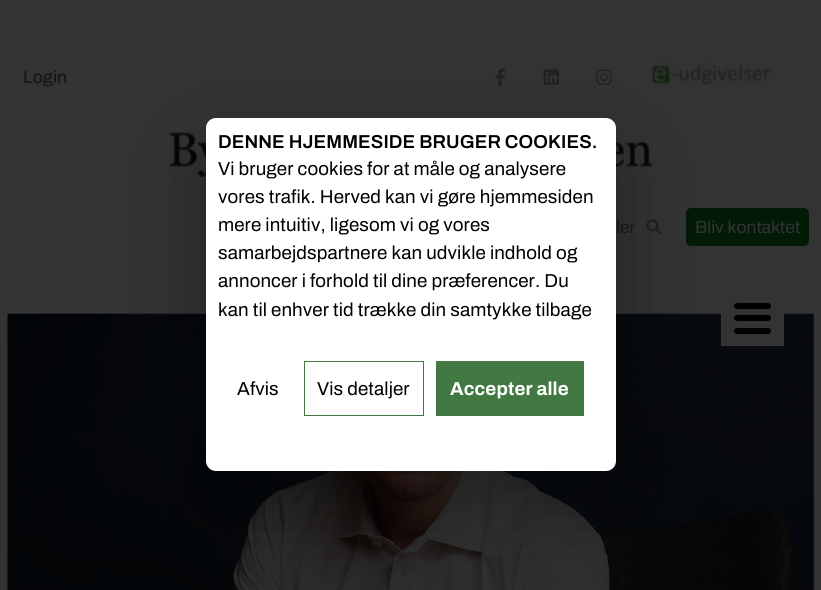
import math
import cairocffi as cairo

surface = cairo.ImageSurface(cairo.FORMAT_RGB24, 821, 590)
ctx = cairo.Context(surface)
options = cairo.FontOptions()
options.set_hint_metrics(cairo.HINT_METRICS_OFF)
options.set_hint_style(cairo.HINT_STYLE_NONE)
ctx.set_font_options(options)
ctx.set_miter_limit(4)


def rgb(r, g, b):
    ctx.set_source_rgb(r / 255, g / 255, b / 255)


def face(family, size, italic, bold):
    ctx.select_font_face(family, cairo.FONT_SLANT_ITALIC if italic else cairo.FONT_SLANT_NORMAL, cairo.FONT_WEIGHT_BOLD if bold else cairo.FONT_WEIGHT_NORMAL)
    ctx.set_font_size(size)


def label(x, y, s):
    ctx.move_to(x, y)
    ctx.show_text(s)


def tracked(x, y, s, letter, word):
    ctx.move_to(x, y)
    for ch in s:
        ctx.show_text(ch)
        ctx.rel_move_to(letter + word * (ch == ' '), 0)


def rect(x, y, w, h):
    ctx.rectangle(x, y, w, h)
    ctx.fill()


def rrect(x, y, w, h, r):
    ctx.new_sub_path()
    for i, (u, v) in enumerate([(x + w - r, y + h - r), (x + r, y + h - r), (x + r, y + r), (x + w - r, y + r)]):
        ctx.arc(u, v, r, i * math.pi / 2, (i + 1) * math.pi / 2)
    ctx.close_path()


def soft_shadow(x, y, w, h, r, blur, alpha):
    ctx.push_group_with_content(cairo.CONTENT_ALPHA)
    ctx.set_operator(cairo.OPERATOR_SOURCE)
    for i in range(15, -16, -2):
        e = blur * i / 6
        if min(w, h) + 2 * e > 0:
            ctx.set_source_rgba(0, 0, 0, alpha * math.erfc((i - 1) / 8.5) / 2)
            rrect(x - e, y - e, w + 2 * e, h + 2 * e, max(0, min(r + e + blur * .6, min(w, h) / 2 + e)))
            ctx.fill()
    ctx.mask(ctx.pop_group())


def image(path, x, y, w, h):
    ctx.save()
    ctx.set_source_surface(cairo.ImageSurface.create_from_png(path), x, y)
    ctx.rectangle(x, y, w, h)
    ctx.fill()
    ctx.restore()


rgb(51, 51, 51)
ctx.paint()
face('Archivo Medium', 17.5, 0, 0)
rgb(25, 22, 22)
label(23, 83, 'Login')
image('image0.png', 495, 68, 11, 18)
image('image1.png', 543, 69, 17, 16)
image('image2.png', 596, 69, 16, 16)
image('image3.png', 648, 63, 124, 24)
image('image4.png', 168, 132, 485, 45)
ctx.save()
ctx.rectangle(509, 218, 125, 18)
ctx.clip()
face('Archivo', 17.5, 0, 0)
label(616, 233, 'ler')
ctx.restore()
image('image5.png', 646, 219, 16, 16)
rgb(2, 26, 6)
rrect(686, 208, 123, 38, 5)
ctx.fill()
face('Archivo', 17.5, 0, 0)
rgb(51, 51, 51)
label(695, 233, 'Bliv kontaktet')
image('image6.png', 7, 313, 807, 277)
rect(721, 313, 63, 33)
rgb(0, 0, 0)
rrect(734, 303, 37, 6, 3)
ctx.fill()
rrect(734, 315, 37, 6, 3)
ctx.fill()
rrect(734, 328, 37, 6, 3)
ctx.fill()
rgb(0, 0, 0)
soft_shadow(206, 158, 410, 353, 10, 42.5, 0.3)
rgb(255, 255, 255)
rrect(206, 118, 410, 353, 10)
ctx.fill()
face('Archivo SemiBold', 18.75, 0, 0)
rgb(0, 0, 0)
tracked(218, 148, 'DENNE HJEMMESIDE BRUGER COOKIES.', 0.1, 0)
face('Archivo', 18.75, 0, 0)
tracked(218, 175, 'Vi bruger cookies for at måle og analysere', 0.1, 0)
tracked(218, 203, 'vores trafik. Herved kan vi gøre hjemmesiden', 0.1, 0)
tracked(218, 231, 'mere intuitiv, ligesom vi og vores', 0.1, 0)
tracked(218, 259, 'samarbejdspartnere kan udvikle indhold og', 0.1, 0)
tracked(218, 287, 'annoncer i forhold til dine præferencer. Du', 0.1, 0)
tracked(218, 316, 'kan til enhver tid trække din samtykke tilbage', 0.1, 0)
tracked(237, 395, 'Afvis', 0.1, 0)
ctx.rectangle(304.5, 361.5, 119, 54)
rgb(66, 121, 66)
ctx.set_line_width(1)
ctx.stroke()
rgb(0, 0, 0)
tracked(317, 395, 'Vis detaljer', 0.1, 0)
rgb(66, 121, 66)
rect(436, 361, 148, 55)
face('Archivo', 18.75, 0, 1)
rgb(255, 255, 255)
tracked(450, 395, 'Accepter alle', 0.1, 0)
surface.write_to_png('render.png')
